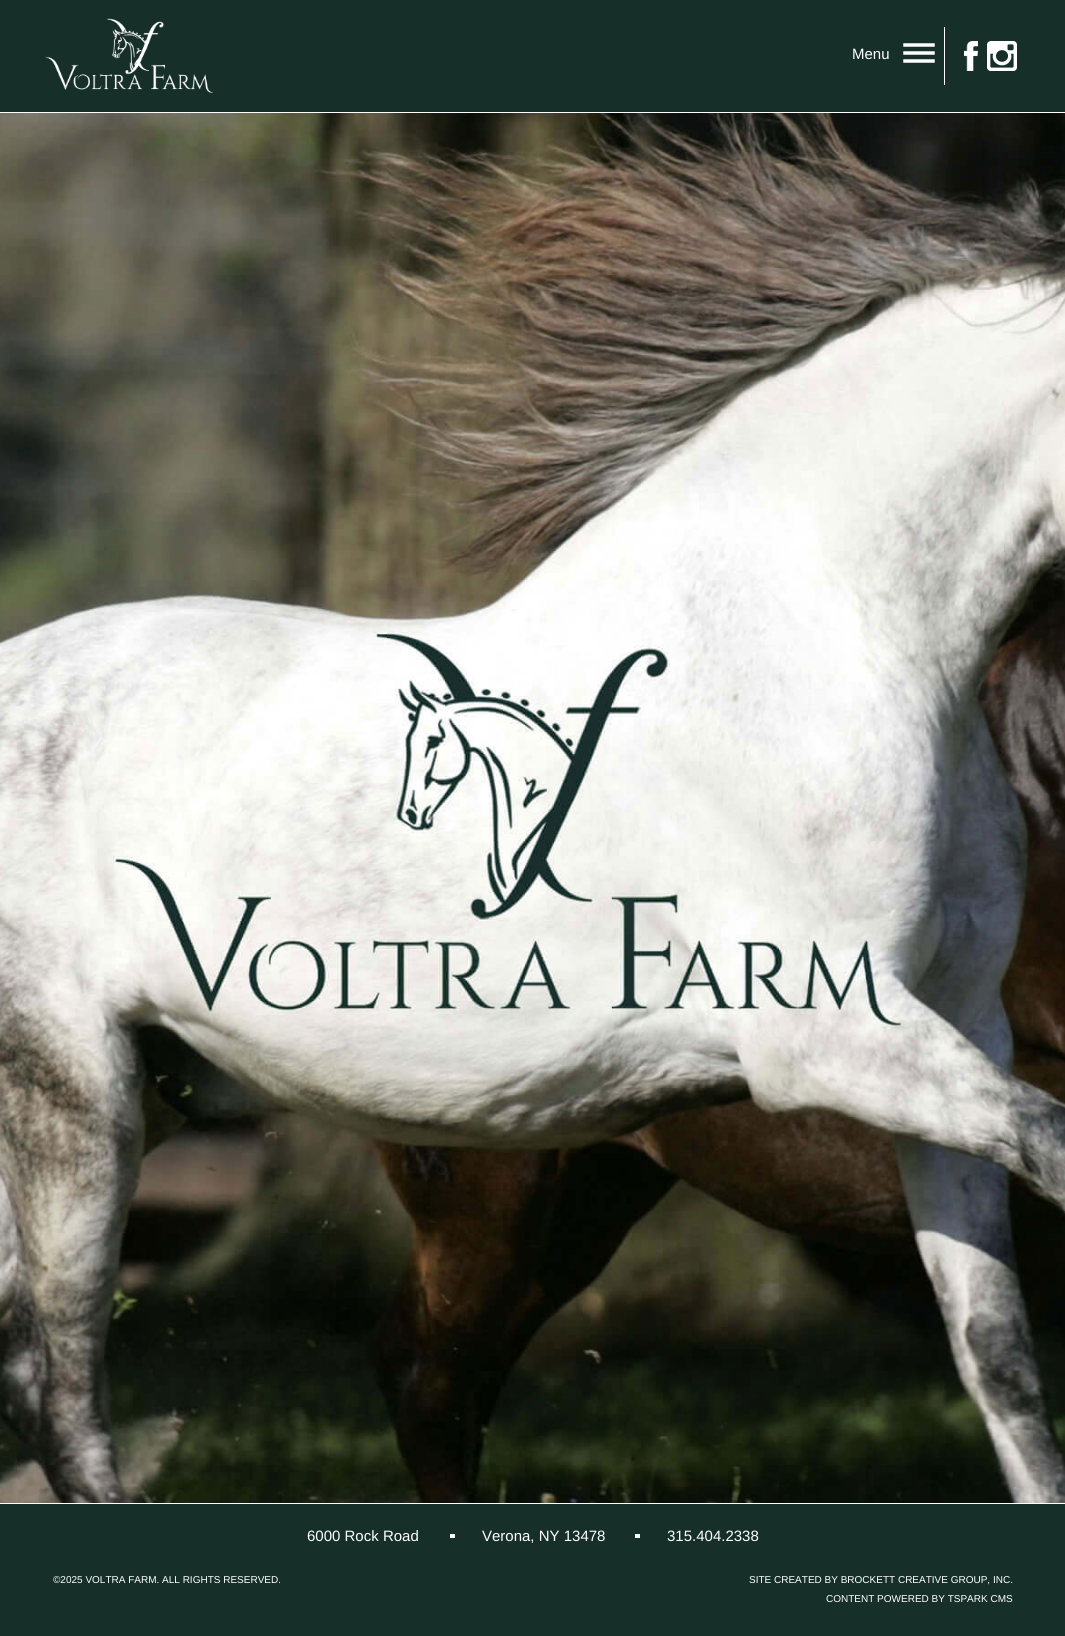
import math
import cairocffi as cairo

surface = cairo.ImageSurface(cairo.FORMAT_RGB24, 1065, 1636)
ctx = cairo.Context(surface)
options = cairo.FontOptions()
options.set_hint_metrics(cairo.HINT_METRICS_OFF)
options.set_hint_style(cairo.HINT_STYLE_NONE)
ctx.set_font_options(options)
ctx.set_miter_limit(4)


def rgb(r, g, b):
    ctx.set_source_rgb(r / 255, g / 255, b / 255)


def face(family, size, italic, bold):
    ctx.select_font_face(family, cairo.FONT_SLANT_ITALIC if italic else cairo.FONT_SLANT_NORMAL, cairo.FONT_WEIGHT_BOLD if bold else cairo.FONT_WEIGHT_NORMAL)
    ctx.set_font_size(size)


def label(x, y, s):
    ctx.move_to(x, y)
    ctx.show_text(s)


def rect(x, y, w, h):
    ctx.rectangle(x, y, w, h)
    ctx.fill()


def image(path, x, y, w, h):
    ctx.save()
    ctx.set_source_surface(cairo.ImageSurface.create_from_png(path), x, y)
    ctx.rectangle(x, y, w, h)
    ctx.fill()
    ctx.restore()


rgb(255, 255, 255)
ctx.paint()
rgb(22, 48, 41)
rect(0, 0, 1065, 112)
image('image0.png', 45, 18, 168, 75)
rgb(255, 255, 255)
rect(944, 27, 1, 58)
face('Liberation Sans', 15, 0, 0)
label(852, 59, 'Menu')
image('image1.png', 903, 43, 32, 20)
image('image2.png', 964, 41, 14, 30)
image('image3.png', 987, 41, 30, 30)
image('image4.png', 0, 113, 1065, 1390)
rgb(22, 48, 41)
rect(0, 1504, 1065, 132)
rgb(255, 255, 255)
label(307, 1541, '6000 Rock Road')
rect(450, 1534, 5, 4)
label(482, 1541, 'Verona, NY 13478')
rect(635, 1534, 5, 4)
label(667, 1541, '315.404.2338')
face('Liberation Sans', 10, 0, 0)
label(53, 1583, '©2025 VOLTRA FARM. ALL RIGHTS RESERVED.')
label(749, 1583, 'SITE CREATED BY BROCKETT CREATIVE GROUP, INC.')
label(826, 1602, 'CONTENT POWERED BY TSPARK CMS')
surface.write_to_png('render.png')
